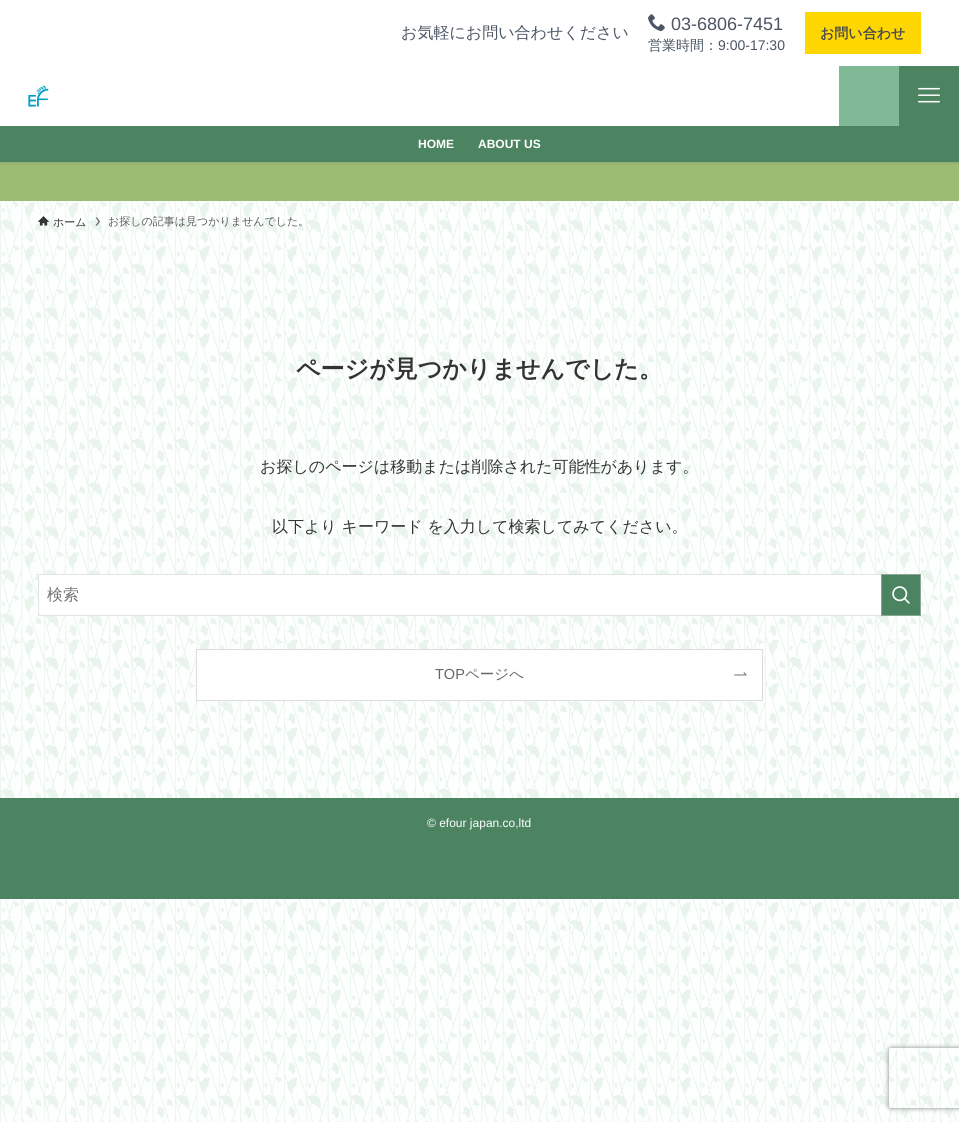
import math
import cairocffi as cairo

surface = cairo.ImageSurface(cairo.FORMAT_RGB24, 959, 1122)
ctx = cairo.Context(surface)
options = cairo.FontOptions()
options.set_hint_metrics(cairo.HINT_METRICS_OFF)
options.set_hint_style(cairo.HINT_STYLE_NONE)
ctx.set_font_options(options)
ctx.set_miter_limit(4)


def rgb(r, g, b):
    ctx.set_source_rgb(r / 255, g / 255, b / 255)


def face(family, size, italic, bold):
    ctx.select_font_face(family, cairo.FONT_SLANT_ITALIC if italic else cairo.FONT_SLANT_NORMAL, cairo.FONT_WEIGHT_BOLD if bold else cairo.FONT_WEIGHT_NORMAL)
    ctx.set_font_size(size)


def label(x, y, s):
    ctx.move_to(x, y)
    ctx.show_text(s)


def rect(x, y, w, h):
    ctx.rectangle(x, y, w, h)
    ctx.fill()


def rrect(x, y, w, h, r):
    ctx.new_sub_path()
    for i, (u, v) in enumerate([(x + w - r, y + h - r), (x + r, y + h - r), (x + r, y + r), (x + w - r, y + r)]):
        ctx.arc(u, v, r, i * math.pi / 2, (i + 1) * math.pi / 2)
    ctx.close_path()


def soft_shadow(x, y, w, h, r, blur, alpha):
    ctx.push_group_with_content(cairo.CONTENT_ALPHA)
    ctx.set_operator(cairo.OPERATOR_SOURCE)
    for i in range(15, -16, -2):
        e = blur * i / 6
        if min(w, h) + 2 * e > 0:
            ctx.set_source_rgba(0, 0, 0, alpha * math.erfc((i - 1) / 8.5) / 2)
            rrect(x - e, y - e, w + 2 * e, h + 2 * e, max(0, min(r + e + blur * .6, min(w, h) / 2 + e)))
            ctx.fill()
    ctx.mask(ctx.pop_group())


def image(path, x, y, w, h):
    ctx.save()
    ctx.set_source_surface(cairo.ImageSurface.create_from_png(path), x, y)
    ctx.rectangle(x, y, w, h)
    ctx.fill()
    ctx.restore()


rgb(252, 255, 254)
ctx.paint()
rgb(156, 188, 116)
rect(0, 162, 959, 39)
rgb(0, 0, 0)
soft_shadow(0, 1, 959, 162, 0, 2, 0.12)
rgb(255, 255, 255)
rect(0, 0, 959, 126)
face('WenQuanYi Zen Hei Medium', 16, 0, 0)
rgb(75, 85, 99)
label(401, 38, 'お気軽にお問い合わせください')
image('image0.png', 648, 14, 17, 18)
face('Liberation Sans', 18, 0, 0)
label(671, 30, '03-6806-7451')
face('WenQuanYi Zen Hei Medium', 14, 0, 0)
label(648, 50, '営業時間：')
face('Liberation Sans', 14, 0, 0)
label(718, 50, '9:00-17:30')
rgb(255, 215, 0)
rect(805, 12, 116, 42)
face('WenQuanYi Zen Hei', 14, 0, 1)
rgb(75, 75, 75)
label(820, 38, 'お問い合わせ')
image('image1.png', 28, 85, 21, 22)
rgb(128, 185, 149)
rect(839, 66, 60, 60)
rgb(76, 132, 98)
rect(899, 66, 60, 60)
image('image2.png', 918, 87, 22, 16)
rect(0, 126, 959, 36)
face('Liberation Sans', 12, 0, 1)
rgb(255, 255, 255)
label(418, 148, 'HOME')
label(478, 148, 'ABOUT US')
ctx.save()
ctx.set_fill_rule(cairo.FILL_RULE_EVEN_ODD)
ctx.new_path()
ctx.move_to(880, 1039)
ctx.line_to(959, 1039)
ctx.line_to(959, 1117)
ctx.line_to(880, 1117)
ctx.close_path()
ctx.move_to(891, 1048)
ctx.line_to(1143, 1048)
ctx.curve_to(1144, 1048, 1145, 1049, 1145, 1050)
ctx.line_to(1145, 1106)
ctx.curve_to(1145, 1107, 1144, 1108, 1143, 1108)
ctx.line_to(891, 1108)
ctx.curve_to(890, 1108, 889, 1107, 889, 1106)
ctx.line_to(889, 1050)
ctx.curve_to(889, 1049, 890, 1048, 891, 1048)
ctx.close_path()
ctx.clip()
rgb(128, 128, 128)
soft_shadow(889, 1048, 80, 60, 2, 2.5, 1)
ctx.restore()
image('image3.png', 0, 201, 959, 921)
image('image4.png', 38, 216, 11, 10)
face('WenQuanYi Zen Hei Medium', 11, 0, 0)
rgb(51, 51, 51)
label(53, 226, 'ホーム')
ctx.set_source_rgba(0.2, 0.2, 0.2, 0.8)
ctx.new_path()
ctx.move_to(97, 217.5)
ctx.line_to(95.5, 217.5)
ctx.line_to(98.5, 221.5)
ctx.line_to(95.5, 225.5)
ctx.line_to(97, 225.5)
ctx.line_to(100, 221.5)
ctx.close_path()
ctx.fill()
rgb(90, 91, 91)
label(108, 225, 'お探しの記事は見つかりませんでした。')
face('WenQuanYi Zen Hei', 24, 0, 1)
rgb(51, 51, 51)
label(296, 377, 'ページが見つかりませんでした。')
face('WenQuanYi Zen Hei Medium', 16, 0, 0)
label(260, 472, 'お探しのページは移動または削除された可能性があります。')
label(272, 532, '以下より キーワード を入力して検索してみてください。')
rgb(255, 255, 255)
rect(39, 575, 842, 40)
ctx.rectangle(38.5, 574.5, 882, 41)
rgb(227, 227, 227)
ctx.set_line_width(1)
ctx.stroke()
rgb(117, 117, 117)
label(47, 600, '検索')
rgb(76, 132, 98)
ctx.rectangle(881.5, 574.5, 39, 41)
ctx.fill_preserve()
rgb(138, 166, 149)
ctx.stroke()
image('image5.png', 892, 586, 18, 18)
ctx.rectangle(196.5, 649.5, 566, 51)
rgb(220, 220, 220)
ctx.stroke()
rgb(255, 255, 255)
rect(197, 650, 565, 50)
face('Liberation Sans', 14.5, 0, 0)
rgb(102, 102, 102)
label(435, 679, 'TOP')
face('WenQuanYi Zen Hei Medium', 14.5, 0, 0)
label(465, 679, 'ページへ')
image('image6.png', 734, 672, 13, 4)
rgb(76, 132, 98)
rect(0, 798, 959, 101)
face('Liberation Sans', 12, 0, 0)
rgb(255, 255, 255)
label(427, 827, '© efour japan.co,ltd')
surface.write_to_png('render.png')
